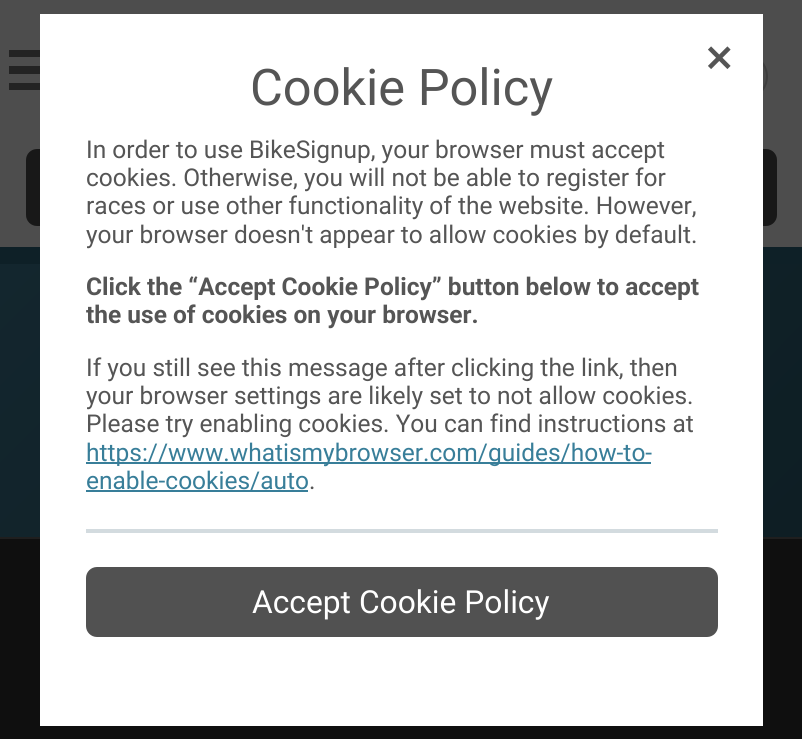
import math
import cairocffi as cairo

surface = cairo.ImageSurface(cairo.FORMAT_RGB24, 802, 739)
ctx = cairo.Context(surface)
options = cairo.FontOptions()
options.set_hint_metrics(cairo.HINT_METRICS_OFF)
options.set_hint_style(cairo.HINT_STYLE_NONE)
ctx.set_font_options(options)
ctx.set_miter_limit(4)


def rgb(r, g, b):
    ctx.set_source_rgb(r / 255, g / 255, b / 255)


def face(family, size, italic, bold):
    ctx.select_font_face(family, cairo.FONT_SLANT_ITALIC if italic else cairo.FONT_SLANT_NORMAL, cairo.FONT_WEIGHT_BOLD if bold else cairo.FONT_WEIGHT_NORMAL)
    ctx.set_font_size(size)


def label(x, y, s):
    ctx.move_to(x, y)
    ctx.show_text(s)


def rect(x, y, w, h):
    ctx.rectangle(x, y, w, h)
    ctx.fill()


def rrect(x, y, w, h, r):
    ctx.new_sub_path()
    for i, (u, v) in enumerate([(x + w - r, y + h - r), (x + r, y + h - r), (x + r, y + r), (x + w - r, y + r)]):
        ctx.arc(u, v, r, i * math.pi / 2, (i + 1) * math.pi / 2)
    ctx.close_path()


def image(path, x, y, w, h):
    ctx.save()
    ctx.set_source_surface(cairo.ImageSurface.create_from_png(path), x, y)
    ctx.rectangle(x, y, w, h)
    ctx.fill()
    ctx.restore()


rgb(77, 77, 77)
ctx.paint()
rgb(35, 35, 35)
ctx.new_path()
ctx.move_to(61, 50)
ctx.line_to(61, 57)
ctx.line_to(9, 57)
ctx.line_to(9, 50)
ctx.close_path()
ctx.move_to(61, 66)
ctx.line_to(61, 74)
ctx.line_to(9, 74)
ctx.line_to(9, 66)
ctx.close_path()
ctx.move_to(61, 83)
ctx.line_to(61, 90)
ctx.line_to(9, 90)
ctx.line_to(9, 83)
ctx.close_path()
ctx.fill()
image('image0.png', 763, 62, 3, 29)
ctx.arc(744.5, 76.5, 22.5, 0, 2 * math.pi)
rgb(61, 61, 61)
ctx.stroke()
rgb(24, 24, 24)
rrect(26, 149, 751, 77, 11)
ctx.fill()
gradient = cairo.LinearGradient(698, 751, 105, 159)
gradient.add_color_stop_rgba(0, 0.051, 0.114, 0.137, 1)
gradient.add_color_stop_rgba(1, 0.075, 0.149, 0.18, 1)
ctx.set_source(gradient)
rect(0, 264, 802, 273)
rgb(14, 32, 39)
rect(0, 247, 802, 17)
rgb(15, 15, 15)
rect(0, 539, 802, 200)
rgb(31, 31, 31)
rect(0, 537, 802, 2)
ctx.rectangle(41, 15, 721, 710)
rgb(255, 255, 255)
ctx.stroke()
rect(42, 16, 719, 708)
image('image1.png', 708, 46, 23, 23)
face('Roboto', 50.5, 0, 0)
rgb(85, 85, 85)
label(250, 105, 'Cookie Policy')
face('Roboto', 24.5, 0, 0)
label(86, 158, 'In order to use BikeSignup, your browser must accept')
label(86, 186, 'cookies. Otherwise, you will not be able to register for')
label(86, 214, 'races or use other functionality of the website. However,')
label(86, 243, 'your browser doesn\'t appear to allow cookies by default.')
face('Roboto', 24.5, 0, 1)
label(86, 295, 'Click the “Accept Cookie Policy” button below to accept')
label(86, 323, 'the use of cookies on your browser.')
face('Roboto', 24.5, 0, 0)
label(86, 376, 'If you still see this message after clicking the link, then')
label(86, 404, 'your browser settings are likely set to not allow cookies.')
label(86, 432, 'Please try enabling cookies. You can find instructions at')
rgb(56, 126, 153)
rect(86, 462, 565, 2)
label(86, 461, 'https://www.whatismybrowser.com/guides/how-to-')
rect(86, 490, 222, 2)
label(86, 489, 'enable-cookies/auto')
rgb(85, 85, 85)
label(309, 489, '.')
rgb(211, 219, 223)
rect(86, 529, 632, 4)
rgb(81, 81, 81)
rrect(86, 567, 632, 70, 11)
ctx.fill()
face('Roboto', 31.75, 0, 0)
rgb(255, 255, 255)
label(252, 613, 'Accept Cookie Policy')
surface.write_to_png('render.png')
